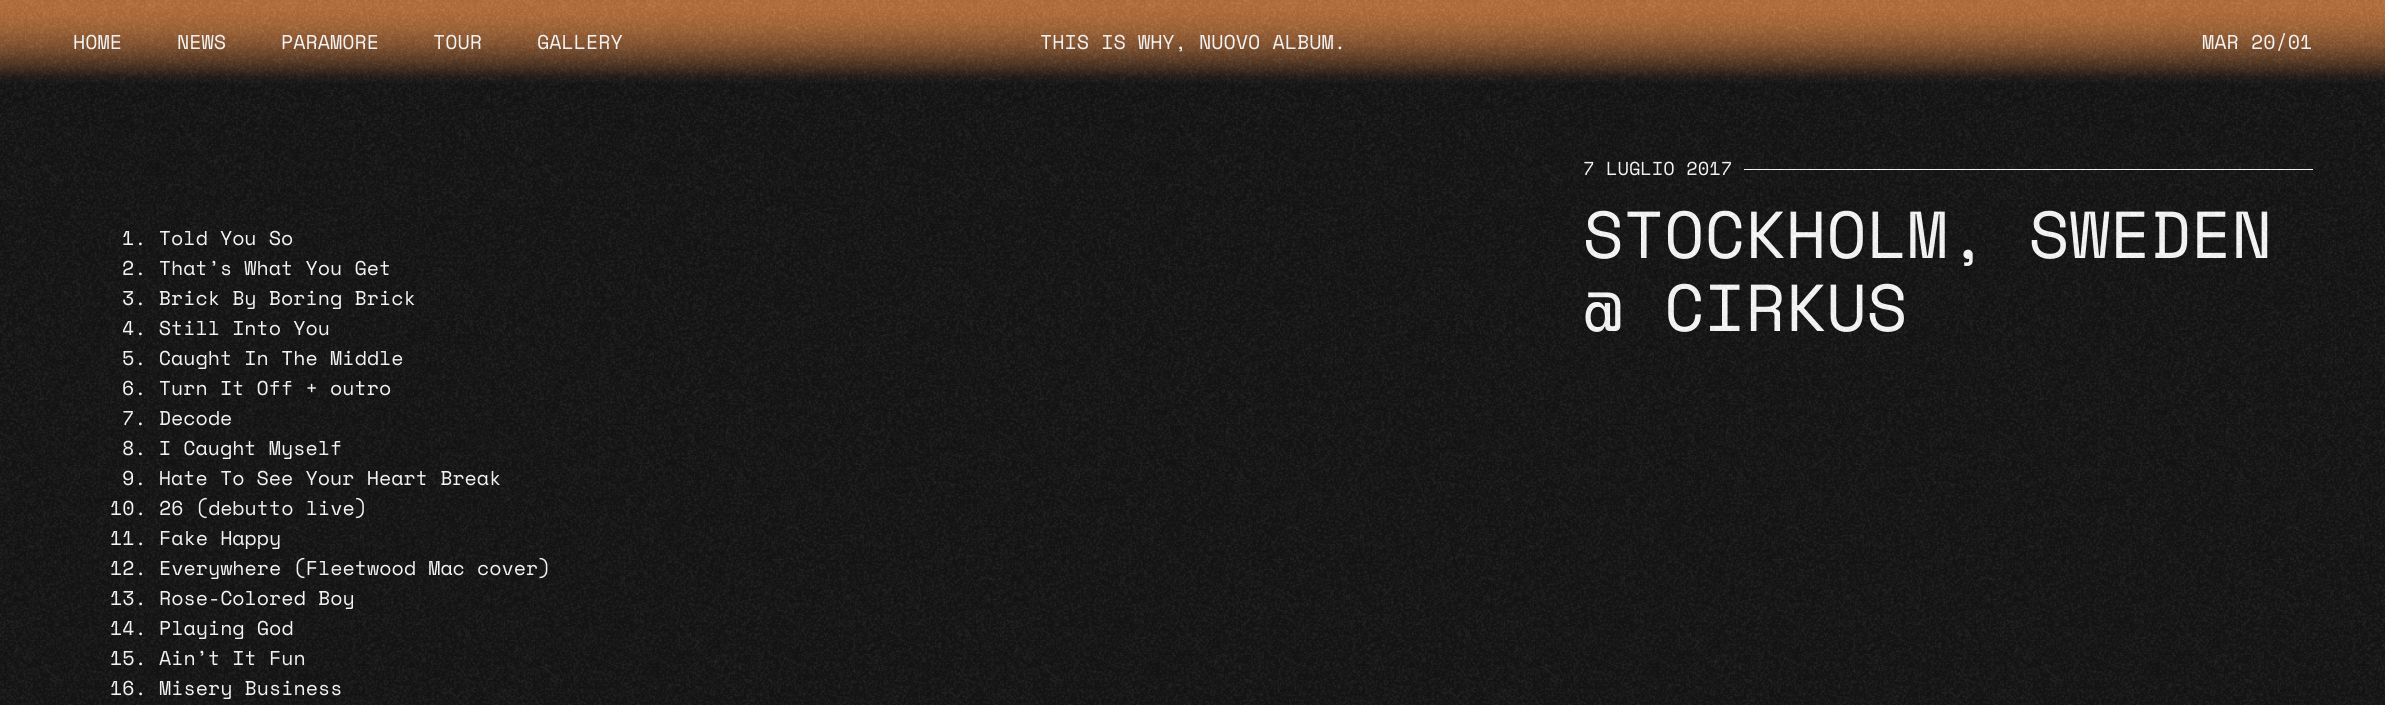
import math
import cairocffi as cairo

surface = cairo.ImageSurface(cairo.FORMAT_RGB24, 2385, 705)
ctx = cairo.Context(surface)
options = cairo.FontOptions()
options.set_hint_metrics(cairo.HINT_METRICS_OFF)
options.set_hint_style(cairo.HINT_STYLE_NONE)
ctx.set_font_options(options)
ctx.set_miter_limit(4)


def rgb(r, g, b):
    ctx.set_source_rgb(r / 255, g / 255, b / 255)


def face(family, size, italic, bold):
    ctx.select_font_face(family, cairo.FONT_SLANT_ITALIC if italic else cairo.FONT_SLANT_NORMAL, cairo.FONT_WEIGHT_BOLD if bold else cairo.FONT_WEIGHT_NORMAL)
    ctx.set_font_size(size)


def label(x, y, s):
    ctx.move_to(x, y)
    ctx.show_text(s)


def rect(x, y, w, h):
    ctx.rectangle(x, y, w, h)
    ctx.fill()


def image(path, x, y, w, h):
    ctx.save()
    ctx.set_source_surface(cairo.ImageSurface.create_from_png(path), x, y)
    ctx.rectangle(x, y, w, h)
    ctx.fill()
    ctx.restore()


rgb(20, 20, 20)
ctx.paint()
gradient = cairo.LinearGradient(1193, 85, 1193, 0)
gradient.add_color_stop_rgba(0, 0.078, 0.078, 0.078, 1)
gradient.add_color_stop_rgba(1, 0.725, 0.447, 0.243, 1)
ctx.set_source(gradient)
rect(0, 0, 2385, 84)
gradient = cairo.LinearGradient(1193, 85, 1193, 0)
gradient.add_color_stop_rgba(0.1, 0.725, 0.447, 0.243, 0)
gradient.add_color_stop_rgba(1, 0.725, 0.447, 0.243, 1)
ctx.set_source(gradient)
rect(0, 2, 2385, 73)
face('Space Mono', 20, 0, 0)
rgb(255, 255, 255)
label(73, 49, 'HOME')
label(177, 49, 'NEWS')
label(281, 49, 'PARAMORE')
label(433, 49, 'TOUR')
label(537, 49, 'GALLERY')
label(1040, 49, 'THIS IS WHY, NUOVO ALBUM.')
label(2202, 49, 'MAR 20/01')
label(122, 245, '1. Told You So')
label(122, 275, '2. That’s What You Get')
label(122, 305, '3. Brick By Boring Brick')
label(122, 335, '4. Still Into You')
label(122, 365, '5. Caught In The Middle')
label(122, 395, '6. Turn It Off + outro')
label(122, 425, '7. Decode')
label(122, 455, '8. I Caught Myself')
label(122, 485, '9. Hate To See Your Heart Break')
label(110, 515, '10. 26 (debutto live)')
label(110, 545, '11. Fake Happy')
label(110, 575, '12. Everywhere (Fleetwood Mac cover)')
label(110, 605, '13. Rose-Colored Boy')
label(110, 635, '14. Playing God')
label(110, 665, '15. Ain’t It Fun')
label(110, 695, '16. Misery Business')
face('Space Mono', 18.75, 0, 0)
label(1583, 175, '7 LUGLIO 2017')
rect(1744, 169, 569, 1)
face('Space Mono', 66.25, 0, 0)
label(1583, 258, 'STOCKHOLM, SWEDEN')
label(1583, 331, '@ CIRKUS')
image('image0.png', 0, 0, 2385, 705)
surface.write_to_png('render.png')
